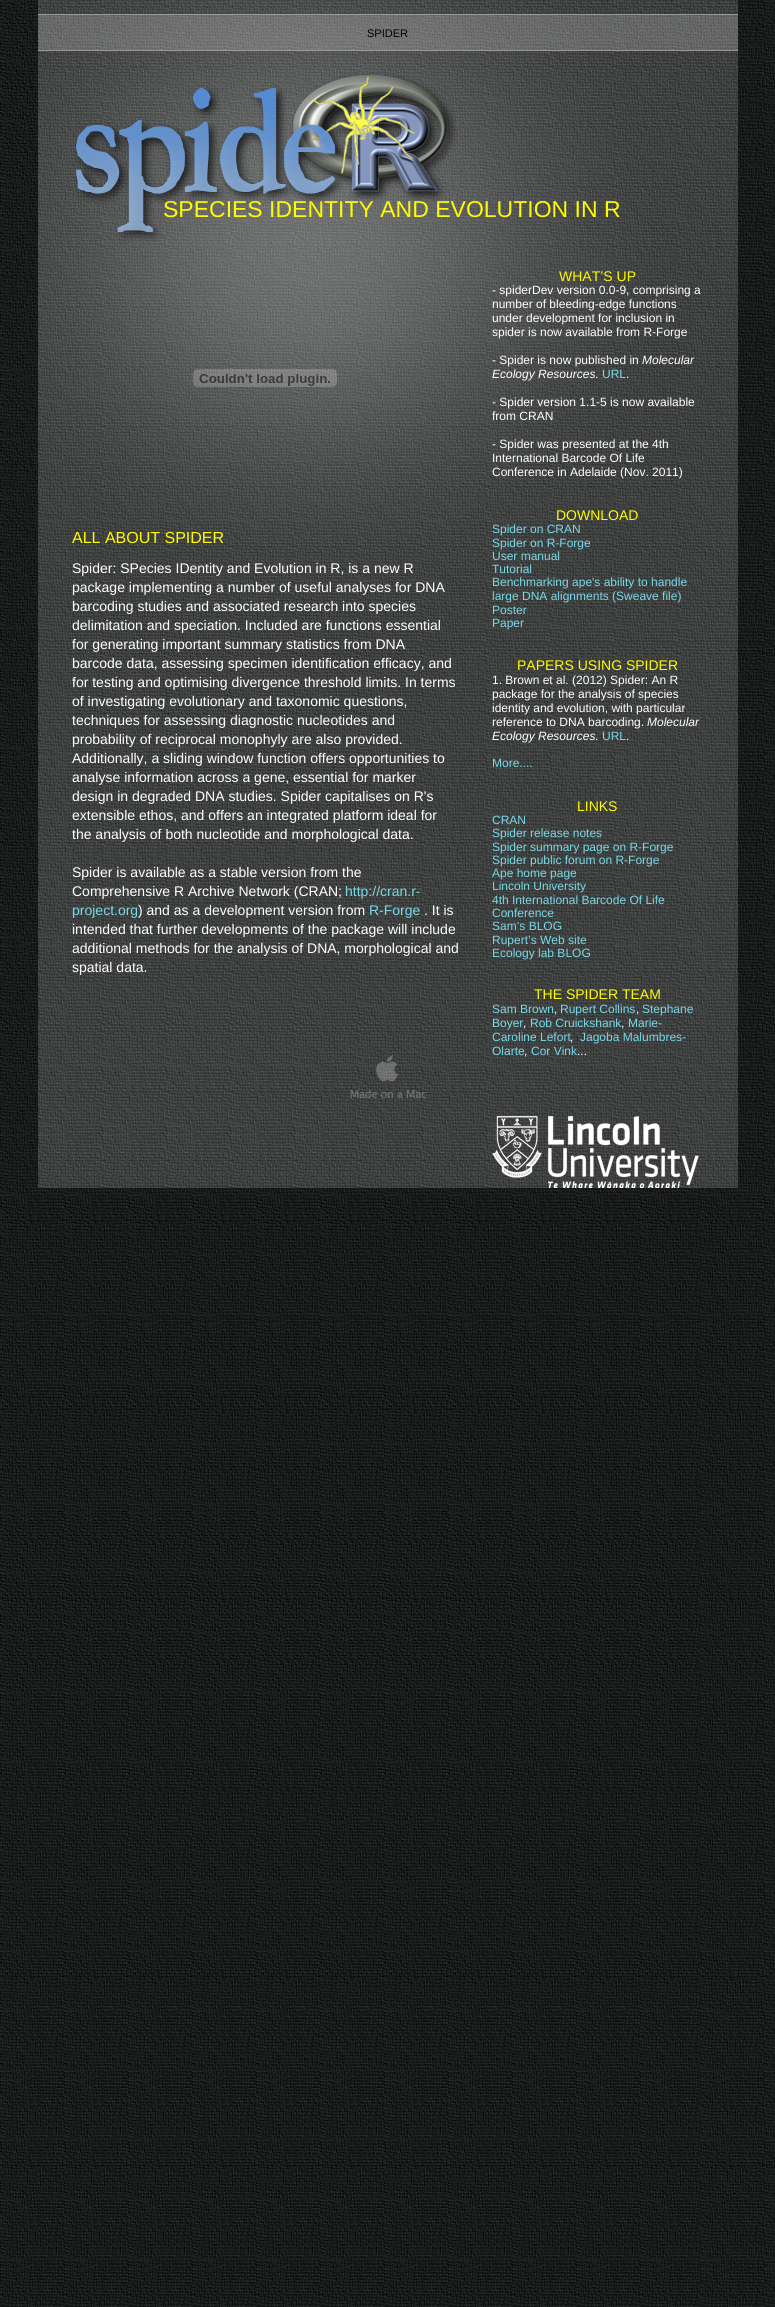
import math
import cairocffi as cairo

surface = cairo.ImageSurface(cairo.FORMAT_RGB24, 775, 2307)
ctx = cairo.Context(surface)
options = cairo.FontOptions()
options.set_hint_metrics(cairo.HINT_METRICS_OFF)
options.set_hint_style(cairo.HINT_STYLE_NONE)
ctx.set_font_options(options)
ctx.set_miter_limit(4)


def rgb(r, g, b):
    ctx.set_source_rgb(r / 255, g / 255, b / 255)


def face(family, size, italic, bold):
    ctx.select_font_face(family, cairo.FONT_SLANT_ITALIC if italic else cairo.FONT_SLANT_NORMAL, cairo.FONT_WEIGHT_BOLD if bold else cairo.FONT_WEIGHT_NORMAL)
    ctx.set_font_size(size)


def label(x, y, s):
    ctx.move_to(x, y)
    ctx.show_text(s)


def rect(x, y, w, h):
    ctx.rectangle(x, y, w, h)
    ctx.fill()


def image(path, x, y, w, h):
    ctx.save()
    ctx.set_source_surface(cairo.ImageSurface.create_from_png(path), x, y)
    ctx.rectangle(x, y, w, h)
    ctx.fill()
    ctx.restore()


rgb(255, 255, 255)
ctx.paint()
image('image0.png', 0, 0, 775, 2307)
image('image1.png', 38, 620, 700, 568)
image('image2.png', 38, 0, 700, 620)
ctx.set_source_rgba(1, 1, 1, 0.2)
rect(38, 15, 700, 35)
rgb(153, 153, 153)
rect(38, 14, 700, 1)
rect(38, 50, 700, 1)
face('Liberation Sans', 11, 0, 0)
rgb(0, 0, 0)
label(367, 37, 'SPIDER')
face('Liberation Sans', 23, 0, 0)
rgb(255, 251, 0)
label(163, 217, 'SPECIES IDENTITY AND EVOLUTION IN R')
image('image3.png', 74, 73, 383, 169)
image('image4.png', 193, 369, 144, 18)
face('Liberation Sans', 14, 0, 0)
label(559, 281, 'WHAT’S UP')
face('Liberation Sans', 12, 0, 0)
rgb(255, 255, 255)
label(492, 294, '- spiderDev version 0.0-9, comprising a')
label(492, 308, 'number of bleeding-edge functions')
label(492, 322, 'under development for inclusion in')
label(492, 336, 'spider is now available from R-Forge')
label(492, 364, '- Spider is now published in')
face('Liberation Sans', 12, 1, 0)
label(642, 364, 'Molecular')
label(492, 378, 'Ecology Resources')
face('Liberation Sans', 12, 0, 0)
label(595, 378, '.')
rgb(121, 217, 232)
label(602, 378, 'URL')
rgb(255, 255, 255)
label(626, 378, '.')
label(492, 406, '- Spider version 1.1-5 is now available')
label(492, 420, 'from CRAN')
label(492, 448, '- Spider was presented at the 4th')
label(492, 462, 'International Barcode Of Life')
label(492, 476, 'Conference in Adelaide (Nov. 2011)')
face('Liberation Sans', 14, 0, 0)
rgb(255, 251, 0)
label(556, 520, 'DOWNLOAD')
face('Liberation Sans', 12, 0, 0)
rgb(121, 217, 232)
label(492, 533, 'Spider on CRAN')
label(492, 547, 'Spider on R-Forge')
label(492, 560, 'User manual')
label(492, 573, 'Tutorial')
label(492, 586, 'Benchmarking ape\'s ability to handle')
label(492, 600, 'large DNA alignments (Sweave file)')
label(492, 614, 'Poster')
label(492, 627, 'Paper')
face('Liberation Sans', 14, 0, 0)
rgb(255, 251, 0)
label(517, 670, 'PAPERS USING SPIDER')
face('Liberation Sans', 12, 0, 0)
rgb(255, 255, 255)
label(492, 684, '1. Brown et al. (2012) Spider: An R')
label(492, 698, 'package for the analysis of species')
label(492, 712, 'identity and evolution, with particular')
label(492, 726, 'reference to DNA barcoding.')
face('Liberation Sans', 12, 1, 0)
label(647, 726, 'Molecular')
label(492, 740, 'Ecology Resources')
face('Liberation Sans', 12, 0, 0)
label(595, 740, '.')
rgb(121, 217, 232)
label(602, 740, 'URL')
rgb(255, 255, 255)
label(626, 740, '.')
rgb(121, 217, 232)
label(492, 767, 'More....')
face('Liberation Sans', 14, 0, 0)
rgb(255, 251, 0)
label(577, 811, 'LINKS')
face('Liberation Sans', 12, 0, 0)
rgb(121, 217, 232)
label(492, 824, 'CRAN')
label(492, 837, 'Spider release notes')
label(492, 851, 'Spider summary page on R-Forge')
label(492, 864, 'Spider public forum on R-Forge')
label(492, 877, 'Ape home page')
label(492, 890, 'Lincoln University')
label(492, 904, '4th International Barcode Of Life')
label(492, 917, 'Conference')
label(492, 930, 'Sam’s BLOG')
label(492, 944, 'Rupert’s Web site')
label(492, 957, 'Ecology lab BLOG')
face('Liberation Sans', 14, 0, 0)
rgb(255, 251, 0)
label(534, 999, 'THE SPIDER TEAM')
face('Liberation Sans', 12, 0, 0)
rgb(121, 217, 232)
label(492, 1013, 'Sam Brown')
rgb(255, 255, 255)
label(554, 1013, ',')
rgb(121, 217, 232)
label(560, 1013, 'Rupert Collins')
rgb(255, 255, 255)
label(636, 1013, ',')
rgb(121, 217, 232)
label(642, 1013, 'Stephane')
label(492, 1027, 'Boyer')
rgb(255, 255, 255)
label(523, 1027, ',')
rgb(121, 217, 232)
label(530, 1027, 'Rob Cruickshank')
rgb(255, 255, 255)
label(621, 1027, ',')
rgb(121, 217, 232)
label(628, 1027, 'Marie-')
label(492, 1041, 'Caroline Lefort')
rgb(255, 255, 255)
label(570, 1041, ',')
rgb(121, 217, 232)
label(580, 1041, 'Jagoba Malumbres-')
label(492, 1055, 'Olarte')
rgb(255, 255, 255)
label(524, 1055, ',')
rgb(121, 217, 232)
label(531, 1055, 'Cor Vink')
rgb(255, 255, 255)
label(577, 1055, '...')
face('Liberation Sans', 16, 0, 0)
rgb(255, 251, 0)
label(72, 543, 'ALL ABOUT SPIDER')
face('Liberation Sans', 14, 0, 0)
rgb(255, 255, 255)
label(72, 573, 'Spider: SPecies IDentity and Evolution in R, is a new R')
label(72, 592, 'package implementing a number of useful analyses for DNA')
label(72, 611, 'barcoding studies and associated research into species')
label(72, 630, 'delimitation and speciation. Included are functions essential')
label(72, 649, 'for generating important summary statistics from DNA')
label(72, 668, 'barcode data, assessing specimen identification efficacy, and')
label(72, 687, 'for testing and optimising divergence threshold limits. In terms')
label(72, 706, 'of investigating evolutionary and taxonomic questions,')
label(72, 725, 'techniques for assessing diagnostic nucleotides and')
label(72, 744, 'probability of reciprocal monophyly are also provided.')
label(72, 763, 'Additionally, a sliding window function offers opportunities to')
label(72, 782, 'analyse information across a gene, essential for marker')
label(72, 801, 'design in degraded DNA studies. Spider capitalises on R\'s')
label(72, 820, 'extensible ethos, and offers an integrated platform ideal for')
label(72, 839, 'the analysis of both nucleotide and morphological data.')
label(72, 877, 'Spider is available as a stable version from the')
label(72, 896, 'Comprehensive R Archive Network (CRAN;')
rgb(121, 217, 232)
label(345, 896, 'http://cran.r-')
label(72, 915, 'project.org')
rgb(255, 255, 255)
label(138, 915, ') and as a development version from')
rgb(121, 217, 232)
label(369, 915, 'R-Forge')
rgb(255, 255, 255)
label(424, 915, '. It is')
label(72, 934, 'intended that further developments of the package will include')
label(72, 953, 'additional methods for the analysis of DNA, morphological and')
label(72, 972, 'spatial data.')
image('image5.png', 492, 1115, 207, 73)
image('image6.png', 350, 1055, 77, 43)
surface.write_to_png('render.png')
